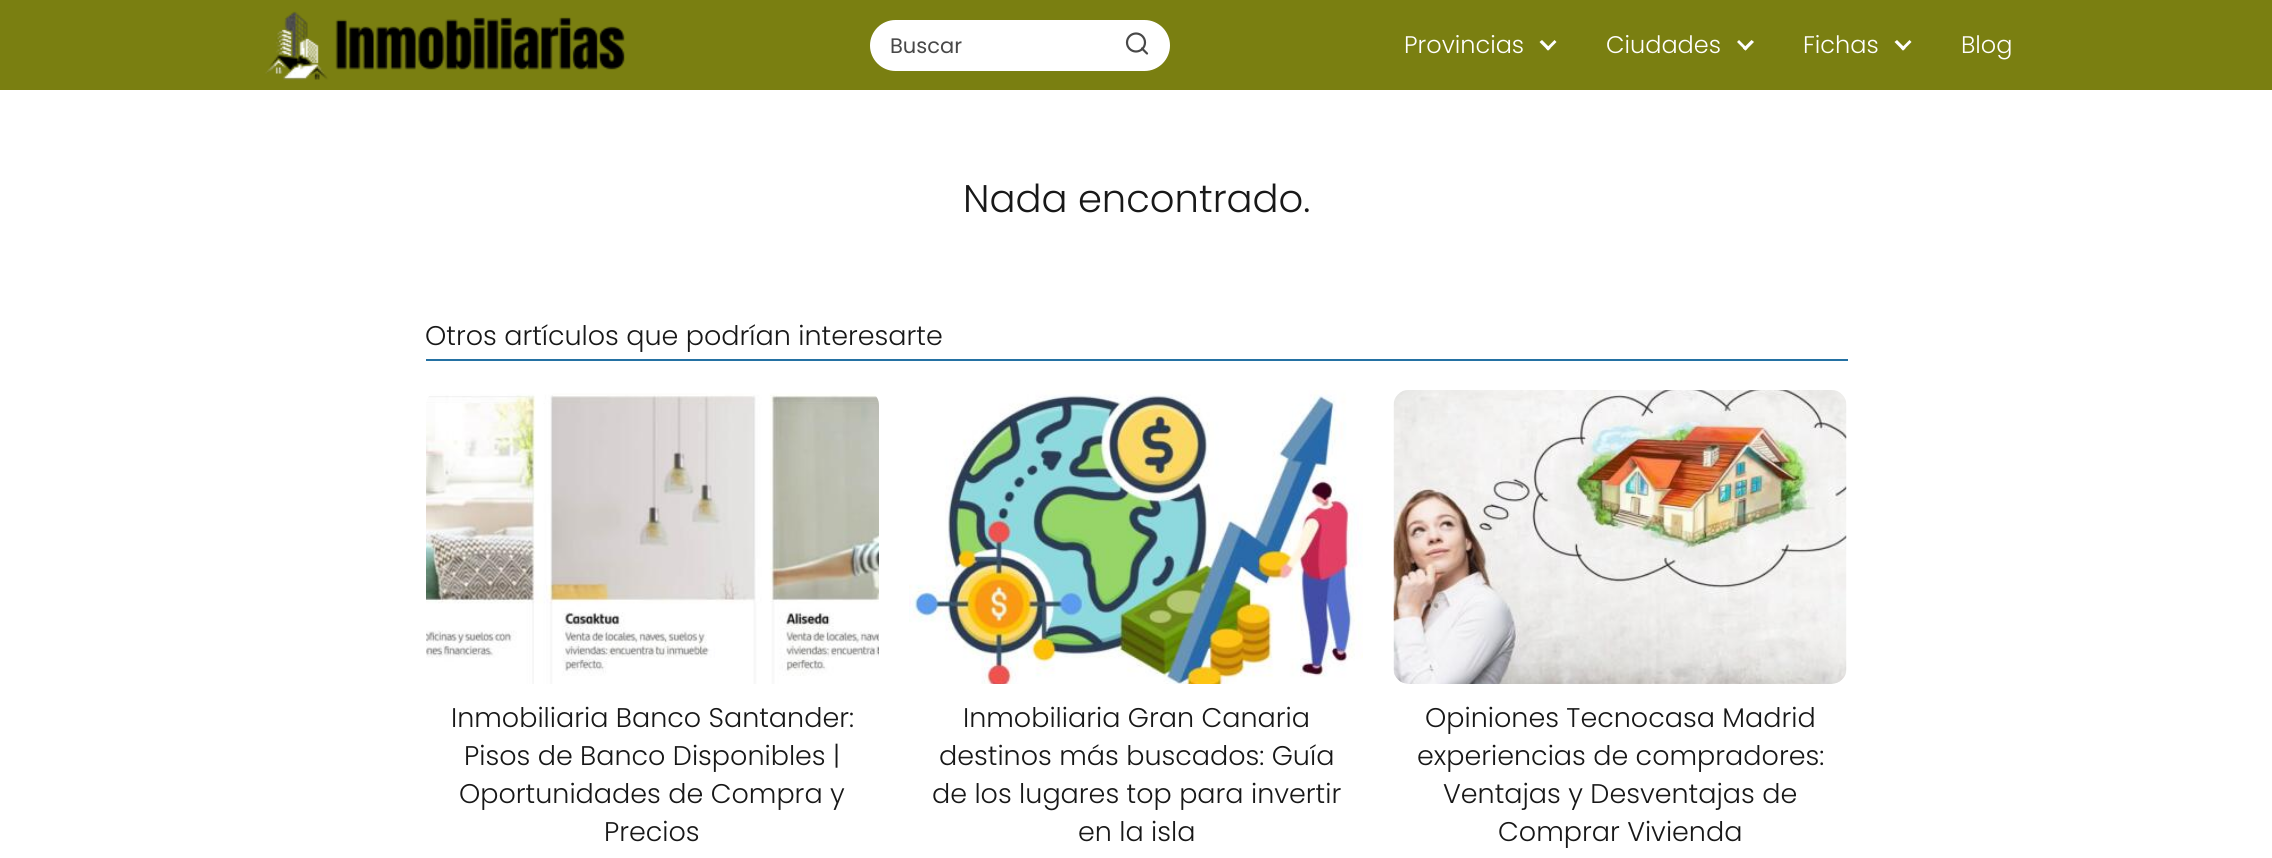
import math
import cairocffi as cairo

surface = cairo.ImageSurface(cairo.FORMAT_RGB24, 2272, 858)
ctx = cairo.Context(surface)
options = cairo.FontOptions()
options.set_hint_metrics(cairo.HINT_METRICS_OFF)
options.set_hint_style(cairo.HINT_STYLE_NONE)
ctx.set_font_options(options)
ctx.set_miter_limit(4)


def rgb(r, g, b):
    ctx.set_source_rgb(r / 255, g / 255, b / 255)


def face(family, size, italic, bold):
    ctx.select_font_face(family, cairo.FONT_SLANT_ITALIC if italic else cairo.FONT_SLANT_NORMAL, cairo.FONT_WEIGHT_BOLD if bold else cairo.FONT_WEIGHT_NORMAL)
    ctx.set_font_size(size)


def label(x, y, s):
    ctx.move_to(x, y)
    ctx.show_text(s)


def rect(x, y, w, h):
    ctx.rectangle(x, y, w, h)
    ctx.fill()


def rrect(x, y, w, h, r):
    ctx.new_sub_path()
    for i, (u, v) in enumerate([(x + w - r, y + h - r), (x + r, y + h - r), (x + r, y + r), (x + w - r, y + r)]):
        ctx.arc(u, v, r, i * math.pi / 2, (i + 1) * math.pi / 2)
    ctx.close_path()


def image(path, x, y, w, h):
    ctx.save()
    ctx.set_source_surface(cairo.ImageSurface.create_from_png(path), x, y)
    ctx.rectangle(x, y, w, h)
    ctx.fill()
    ctx.restore()


rgb(255, 255, 255)
ctx.paint()
rgb(122, 127, 17)
rect(0, 0, 2272, 90)
image('image0.png', 265, 11, 360, 69)
rgb(255, 255, 255)
rrect(871, 21, 298, 49, 24.5)
ctx.fill_preserve()
ctx.stroke()
face('Poppins', 21, 0, 0)
rgb(72, 72, 72)
label(890, 53, 'Buscar')
ctx.new_path()
ctx.arc(1136, 42.5, 9, 0, 2 * math.pi)
ctx.set_line_width(2.2)
ctx.stroke()
ctx.new_path()
ctx.move_to(1147, 53.5)
ctx.line_to(1142, 48.5)
ctx.set_line_cap(cairo.LINE_CAP_ROUND)
ctx.set_line_join(cairo.LINE_JOIN_ROUND)
ctx.stroke()
face('Poppins Light', 24, 0, 0)
rgb(255, 255, 255)
label(1404, 53, 'Provincias')
ctx.new_path()
ctx.move_to(1554.5, 40)
ctx.line_to(1556.5, 42)
ctx.line_to(1548, 50.5)
ctx.line_to(1546, 48.5)
ctx.close_path()
ctx.fill()
ctx.new_path()
ctx.move_to(1542, 40)
ctx.line_to(1550.5, 48.5)
ctx.line_to(1548, 50.5)
ctx.line_to(1539.5, 42)
ctx.close_path()
ctx.fill()
label(1606, 53, 'Ciudades')
ctx.new_path()
ctx.move_to(1751.5, 40)
ctx.line_to(1754, 42)
ctx.line_to(1745.5, 50.5)
ctx.line_to(1743, 48.5)
ctx.close_path()
ctx.fill()
ctx.new_path()
ctx.move_to(1739, 40)
ctx.line_to(1747.5, 48.5)
ctx.line_to(1745.5, 50.5)
ctx.line_to(1737, 42)
ctx.close_path()
ctx.fill()
label(1803, 53, 'Fichas')
ctx.new_path()
ctx.move_to(1909.5, 40)
ctx.line_to(1911.5, 42)
ctx.line_to(1903, 50.5)
ctx.line_to(1901, 48.5)
ctx.close_path()
ctx.fill()
ctx.new_path()
ctx.move_to(1897, 40)
ctx.line_to(1905.5, 48.5)
ctx.line_to(1903, 50.5)
ctx.line_to(1894.5, 42)
ctx.close_path()
ctx.fill()
label(1961, 53, 'Blog')
face('Poppins Light', 38.5, 0, 0)
rgb(24, 24, 24)
label(963, 212, 'Nada encontrado.')
rgb(36, 113, 163)
rect(426, 359, 1422, 2)
face('Poppins Light', 27, 0, 0)
rgb(24, 24, 24)
label(425, 345, 'Otros artículos que podrían interesarte')
image('image1.png', 426, 393, 453, 291)
label(451, 727, 'Inmobiliaria Banco Santander:')
label(464, 765, 'Pisos de Banco Disponibles |')
label(459, 803, 'Oportunidades de Compra y')
label(604, 841, 'Precios')
image('image2.png', 909, 390, 454, 294)
label(963, 727, 'Inmobiliaria Gran Canaria')
label(939, 765, 'destinos más buscados: Guía')
label(932, 803, 'de los lugares top para invertir')
label(1078, 841, 'en la isla')
image('image3.png', 1393, 390, 454, 294)
label(1425, 727, 'Opiniones Tecnocasa Madrid')
label(1417, 765, 'experiencias de compradores:')
label(1443, 803, 'Ventajas y Desventajas de')
label(1498, 841, 'Comprar Vivienda')
surface.write_to_png('render.png')
